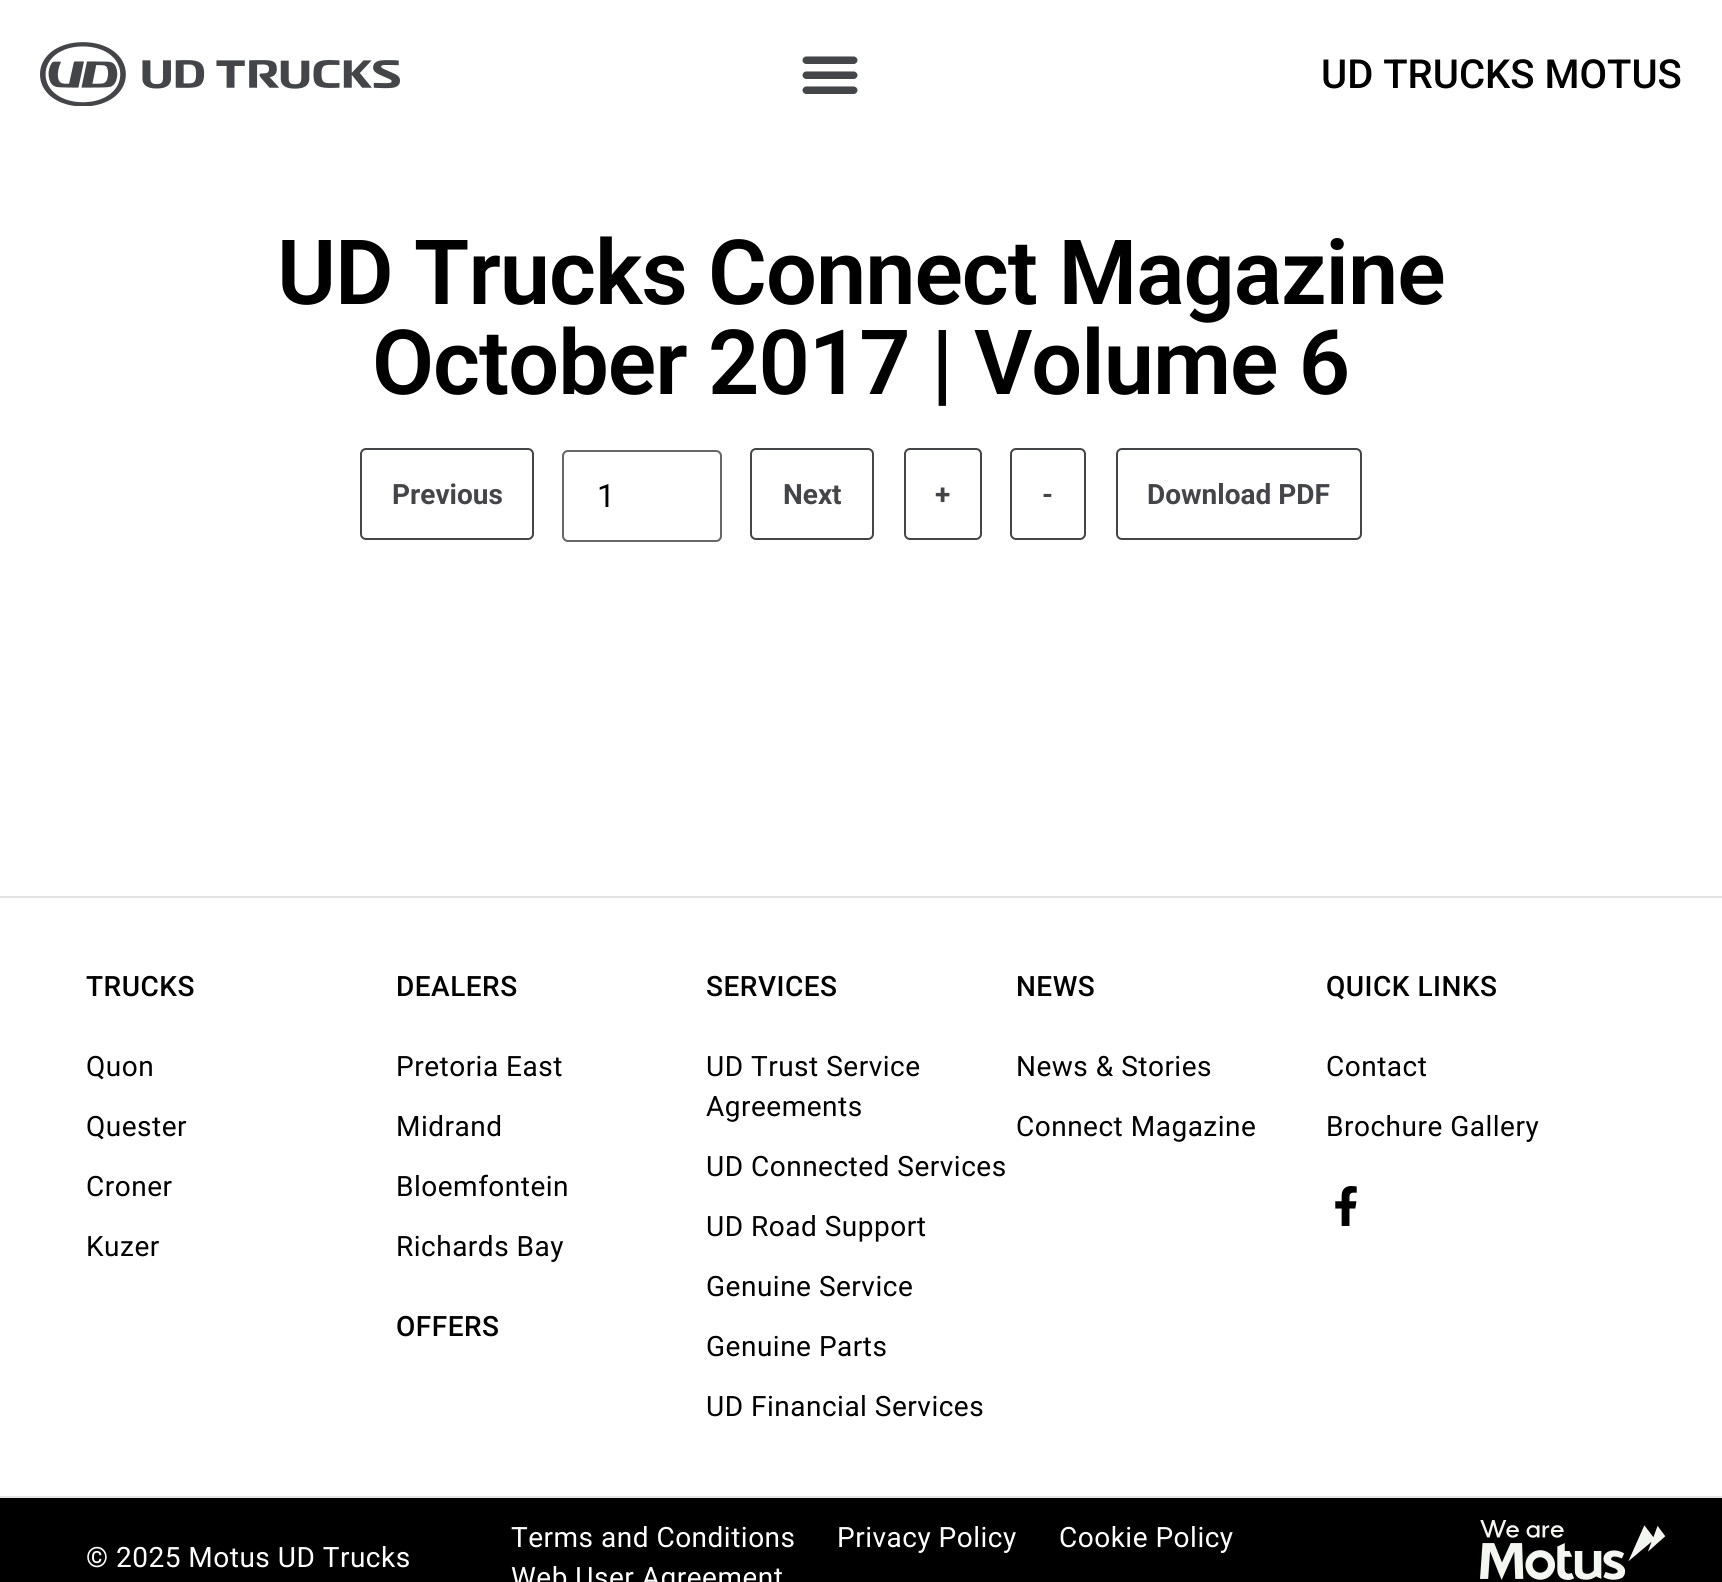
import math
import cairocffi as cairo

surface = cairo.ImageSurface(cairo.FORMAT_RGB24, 1722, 1582)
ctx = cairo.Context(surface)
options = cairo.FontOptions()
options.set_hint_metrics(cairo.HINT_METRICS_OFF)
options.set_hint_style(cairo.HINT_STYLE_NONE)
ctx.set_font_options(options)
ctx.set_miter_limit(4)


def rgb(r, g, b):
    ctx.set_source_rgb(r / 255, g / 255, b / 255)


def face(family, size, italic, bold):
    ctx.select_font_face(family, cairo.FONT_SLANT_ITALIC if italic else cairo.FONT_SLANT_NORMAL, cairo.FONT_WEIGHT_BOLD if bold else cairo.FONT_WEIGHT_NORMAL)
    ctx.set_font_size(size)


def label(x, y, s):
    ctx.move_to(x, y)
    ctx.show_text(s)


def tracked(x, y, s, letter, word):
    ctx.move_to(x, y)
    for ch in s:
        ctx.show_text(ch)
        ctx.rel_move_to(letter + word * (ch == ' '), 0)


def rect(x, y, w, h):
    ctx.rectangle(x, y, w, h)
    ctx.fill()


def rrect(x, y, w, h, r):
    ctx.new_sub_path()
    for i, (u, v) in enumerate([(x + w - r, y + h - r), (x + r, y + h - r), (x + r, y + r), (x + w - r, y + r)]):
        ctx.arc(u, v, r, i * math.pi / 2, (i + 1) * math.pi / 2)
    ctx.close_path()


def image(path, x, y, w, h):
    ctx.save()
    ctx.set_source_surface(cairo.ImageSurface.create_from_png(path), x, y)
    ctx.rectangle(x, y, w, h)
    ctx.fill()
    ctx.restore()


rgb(255, 255, 255)
ctx.paint()
image('image0.png', 40, 42, 360, 64)
image('image1.png', 802, 56, 56, 38)
face('Roboto Medium', 40, 0, 0)
rgb(0, 0, 0)
label(1321, 88, 'UD TRUCKS MOTUS')
face('Roboto SemiBold', 90, 0, 0)
tracked(277, 304, 'UD Trucks Connect Magazine', -1, 0)
tracked(372, 394, 'October 2017 | Volume 6', -1, 0)
rrect(361, 449, 172, 90, 5)
rgb(68, 69, 72)
ctx.stroke()
face('Roboto', 28, 0, 1)
label(392, 504, 'Previous')
rrect(563, 451, 158, 90, 5)
rgb(102, 102, 102)
ctx.stroke()
face('Roboto', 32, 0, 0)
rgb(0, 0, 0)
label(597, 507, '1')
rrect(751, 449, 122, 90, 5)
rgb(68, 69, 72)
ctx.stroke()
face('Roboto', 28, 0, 1)
label(783, 504, 'Next')
rrect(905, 449, 76, 90, 5)
ctx.stroke()
label(935, 504, '+')
rrect(1011, 449, 74, 90, 5)
ctx.stroke()
label(1042, 504, '-')
rrect(1117, 449, 244, 90, 5)
ctx.stroke()
label(1147, 504, 'Download PDF')
rgb(228, 228, 228)
rect(0, 896, 1722, 2)
rect(0, 1496, 1722, 2)
face('Roboto Medium', 28, 0, 0)
rgb(0, 0, 0)
tracked(86, 996, 'TRUCKS', 0.5, 0)
face('Roboto', 28, 0, 0)
tracked(86, 1076, 'Quon', 0.5, 0)
tracked(86, 1136, 'Quester', 0.5, 0)
tracked(86, 1196, 'Croner', 0.5, 0)
tracked(86, 1256, 'Kuzer', 0.5, 0)
face('Roboto Medium', 28, 0, 0)
tracked(396, 996, 'DEALERS', 0.5, 0)
face('Roboto', 28, 0, 0)
tracked(396, 1076, 'Pretoria East', 0.5, 0)
tracked(396, 1136, 'Midrand', 0.5, 0)
tracked(396, 1196, 'Bloemfontein', 0.5, 0)
tracked(396, 1256, 'Richards Bay', 0.5, 0)
face('Roboto Medium', 28, 0, 0)
tracked(396, 1336, 'OFFERS', 0.5, 0)
tracked(706, 996, 'SERVICES', 0.5, 0)
face('Roboto', 28, 0, 0)
tracked(706, 1076, 'UD Trust Service', 0.5, 0)
tracked(706, 1116, 'Agreements', 0.5, 0)
tracked(706, 1176, 'UD Connected Services', 0.5, 0)
tracked(706, 1236, 'UD Road Support', 0.5, 0)
tracked(706, 1296, 'Genuine Service', 0.5, 0)
tracked(706, 1356, 'Genuine Parts', 0.5, 0)
tracked(706, 1416, 'UD Financial Services', 0.5, 0)
face('Roboto Medium', 28, 0, 0)
tracked(1016, 996, 'NEWS', 0.5, 0)
face('Roboto', 28, 0, 0)
tracked(1016, 1076, 'News & Stories', 0.5, 0)
tracked(1016, 1136, 'Connect Magazine', 0.5, 0)
face('Roboto Medium', 28, 0, 0)
tracked(1326, 996, 'QUICK LINKS', 0.5, 0)
face('Roboto', 28, 0, 0)
tracked(1326, 1076, 'Contact', 0.5, 0)
tracked(1326, 1136, 'Brochure Gallery', 0.5, 0)
image('image2.png', 1335, 1186, 22, 40)
rect(0, 1498, 1722, 84)
rgb(255, 255, 255)
tracked(86, 1567, '© 2025 Motus UD Trucks', 0.5, 0)
tracked(511, 1547, 'Terms and Conditions', 0.5, 0)
tracked(837, 1547, 'Privacy Policy', 0.5, 0)
tracked(1059, 1547, 'Cookie Policy', 0.5, 0)
tracked(511, 1587, 'Web User Agreement', 0.5, 0)
image('image3.png', 1480, 1520, 186, 60)
surface.write_to_png('render.png')
